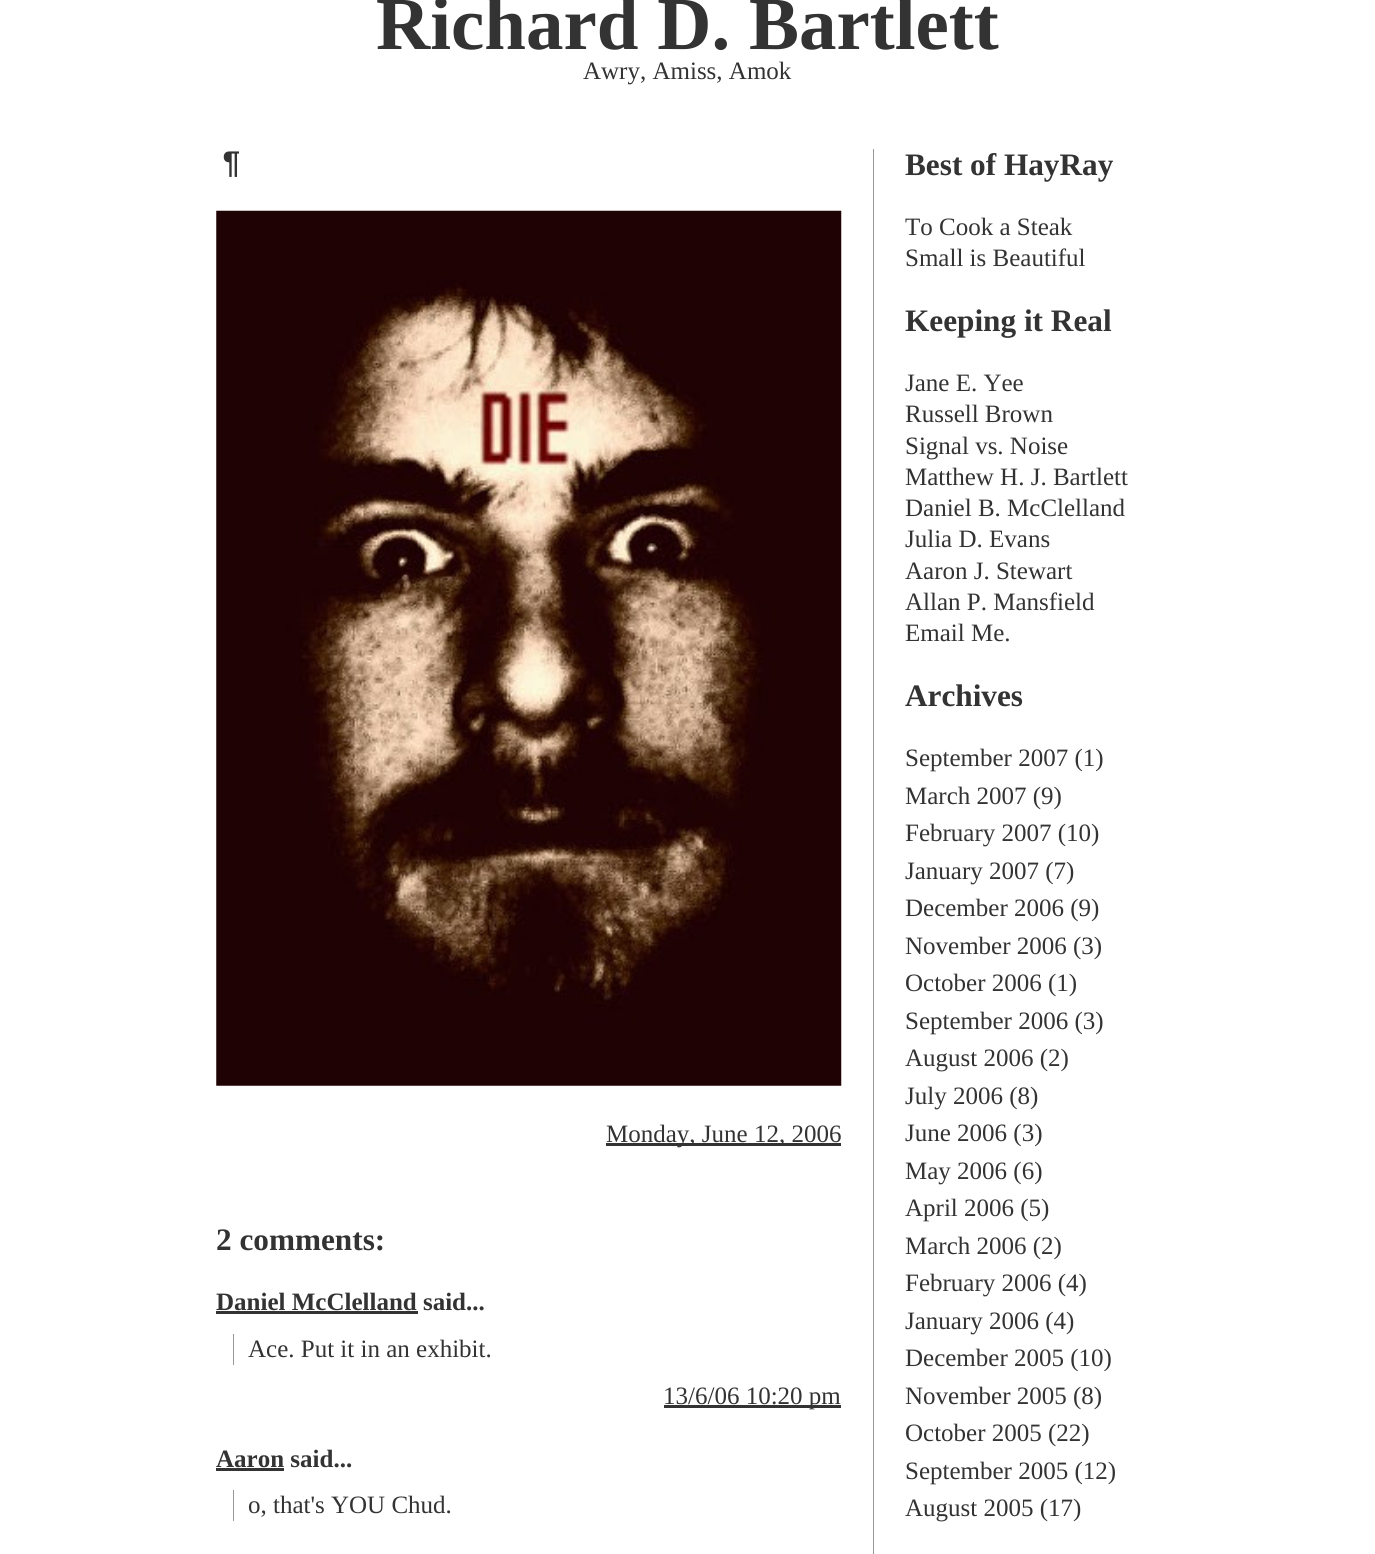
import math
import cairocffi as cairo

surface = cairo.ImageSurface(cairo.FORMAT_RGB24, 1375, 1554)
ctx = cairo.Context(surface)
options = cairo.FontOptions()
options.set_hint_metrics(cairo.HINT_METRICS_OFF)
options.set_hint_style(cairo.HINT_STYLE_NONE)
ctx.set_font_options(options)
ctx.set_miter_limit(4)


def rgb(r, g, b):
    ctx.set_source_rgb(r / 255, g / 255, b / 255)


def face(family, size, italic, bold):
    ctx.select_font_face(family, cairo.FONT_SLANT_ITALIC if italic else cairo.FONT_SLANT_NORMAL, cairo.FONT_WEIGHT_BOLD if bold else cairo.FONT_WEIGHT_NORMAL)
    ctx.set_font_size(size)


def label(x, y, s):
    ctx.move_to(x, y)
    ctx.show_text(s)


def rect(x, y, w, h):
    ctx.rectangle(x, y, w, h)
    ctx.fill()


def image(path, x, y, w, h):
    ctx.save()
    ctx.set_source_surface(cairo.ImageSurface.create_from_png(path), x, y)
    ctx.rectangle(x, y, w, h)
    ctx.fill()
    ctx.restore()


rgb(255, 255, 255)
ctx.paint()
face('Liberation Serif', 75, 0, 1)
rgb(51, 51, 51)
label(376, 49, 'Richard D. Bartlett')
face('Liberation Serif', 25, 0, 0)
label(583, 79, 'Awry, Amiss, Amok')
rgb(153, 153, 153)
rect(873, 149, 1, 1405)
face('Liberation Mono', 31.25, 0, 1)
rgb(51, 51, 51)
label(222, 172, '¶')
image('image0.png', 216, 210, 626, 876)
rect(606, 1143, 235, 3)
face('Liberation Serif', 25, 0, 0)
label(606, 1142, 'Monday, June 12, 2006')
face('Liberation Serif', 31.25, 0, 1)
label(216, 1250, '2 comments:')
face('Liberation Serif', 25, 0, 1)
label(216, 1310, 'Daniel McClelland said...')
rect(216, 1311, 202, 3)
rgb(153, 153, 153)
rect(233, 1334, 1, 31)
face('Liberation Serif', 25, 0, 0)
rgb(51, 51, 51)
label(248, 1357, 'Ace. Put it in an exhibit.')
rect(664, 1405, 177, 3)
label(663, 1404, '13/6/06 10:20 pm')
face('Liberation Serif', 25, 0, 1)
label(216, 1467, 'Aaron said...')
rect(216, 1468, 68, 3)
rgb(153, 153, 153)
rect(233, 1490, 1, 31)
face('Liberation Serif', 25, 0, 0)
rgb(51, 51, 51)
label(248, 1513, 'o, that\'s YOU Chud.')
face('Liberation Serif', 31.25, 0, 1)
label(905, 175, 'Best of HayRay')
face('Liberation Serif', 25, 0, 0)
label(905, 235, 'To Cook a Steak')
label(905, 266, 'Small is Beautiful')
face('Liberation Serif', 31.25, 0, 1)
label(905, 331, 'Keeping it Real')
face('Liberation Serif', 25, 0, 0)
label(905, 391, 'Jane E. Yee')
label(905, 422, 'Russell Brown')
label(905, 454, 'Signal vs. Noise')
label(905, 485, 'Matthew H. J. Bartlett')
label(905, 516, 'Daniel B. McClelland')
label(905, 547, 'Julia D. Evans')
label(905, 579, 'Aaron J. Stewart')
label(905, 610, 'Allan P. Mansfield')
label(905, 641, 'Email Me.')
face('Liberation Serif', 31.25, 0, 1)
label(905, 706, 'Archives')
face('Liberation Serif', 25, 0, 0)
label(905, 766, 'September 2007 (1)')
label(905, 804, 'March 2007 (9)')
label(905, 841, 'February 2007 (10)')
label(905, 879, 'January 2007 (7)')
label(905, 916, 'December 2006 (9)')
label(905, 954, 'November 2006 (3)')
label(905, 991, 'October 2006 (1)')
label(905, 1029, 'September 2006 (3)')
label(905, 1066, 'August 2006 (2)')
label(905, 1104, 'July 2006 (8)')
label(905, 1141, 'June 2006 (3)')
label(905, 1179, 'May 2006 (6)')
label(905, 1216, 'April 2006 (5)')
label(905, 1254, 'March 2006 (2)')
label(905, 1291, 'February 2006 (4)')
label(905, 1329, 'January 2006 (4)')
label(905, 1366, 'December 2005 (10)')
label(905, 1404, 'November 2005 (8)')
label(905, 1441, 'October 2005 (22)')
label(905, 1479, 'September 2005 (12)')
label(905, 1516, 'August 2005 (17)')
surface.write_to_png('render.png')
